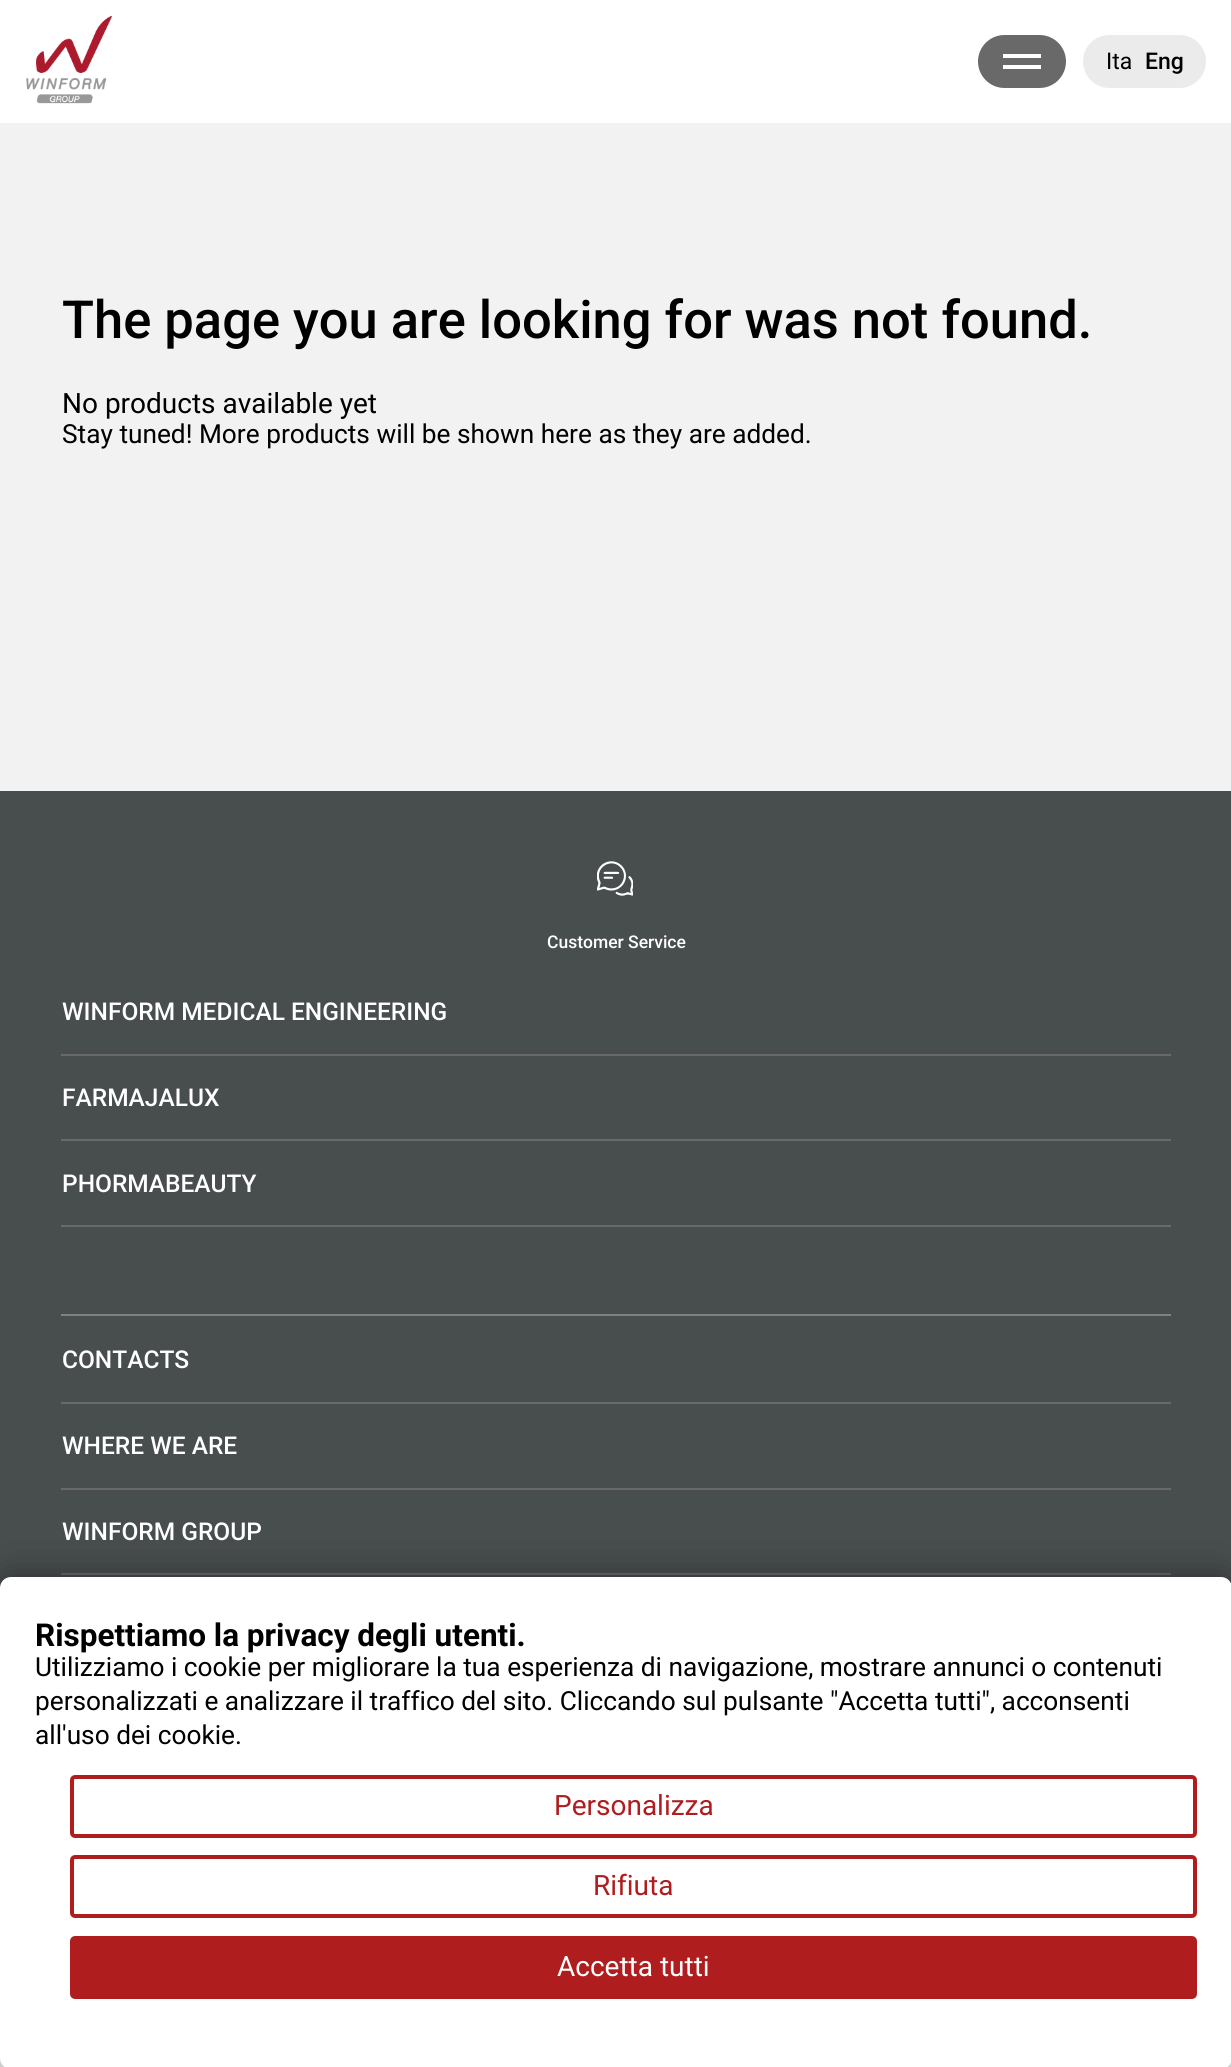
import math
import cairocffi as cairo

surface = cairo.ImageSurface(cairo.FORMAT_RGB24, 1231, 2067)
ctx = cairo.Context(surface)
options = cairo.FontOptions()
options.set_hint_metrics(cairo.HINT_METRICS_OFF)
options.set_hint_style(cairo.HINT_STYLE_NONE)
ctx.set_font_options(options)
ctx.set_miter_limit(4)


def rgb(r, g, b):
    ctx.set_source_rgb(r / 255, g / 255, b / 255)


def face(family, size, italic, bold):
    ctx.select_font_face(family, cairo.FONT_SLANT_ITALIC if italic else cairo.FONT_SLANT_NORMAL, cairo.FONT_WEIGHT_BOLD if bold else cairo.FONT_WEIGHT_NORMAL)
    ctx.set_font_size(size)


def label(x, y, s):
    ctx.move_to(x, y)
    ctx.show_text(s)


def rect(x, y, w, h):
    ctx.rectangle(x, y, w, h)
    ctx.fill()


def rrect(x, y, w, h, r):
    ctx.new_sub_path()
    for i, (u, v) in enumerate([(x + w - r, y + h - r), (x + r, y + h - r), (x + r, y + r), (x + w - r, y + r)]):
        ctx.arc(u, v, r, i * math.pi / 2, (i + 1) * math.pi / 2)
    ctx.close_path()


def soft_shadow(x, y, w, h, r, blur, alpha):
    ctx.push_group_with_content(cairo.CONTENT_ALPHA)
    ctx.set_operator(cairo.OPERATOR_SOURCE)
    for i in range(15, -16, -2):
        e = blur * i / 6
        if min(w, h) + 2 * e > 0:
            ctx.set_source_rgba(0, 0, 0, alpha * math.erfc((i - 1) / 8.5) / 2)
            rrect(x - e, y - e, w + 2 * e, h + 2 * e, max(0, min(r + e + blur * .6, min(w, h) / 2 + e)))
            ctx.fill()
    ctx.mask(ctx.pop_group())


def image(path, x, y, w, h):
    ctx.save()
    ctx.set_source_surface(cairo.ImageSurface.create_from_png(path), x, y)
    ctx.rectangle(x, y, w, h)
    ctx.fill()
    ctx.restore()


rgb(242, 242, 242)
ctx.paint()
rgb(255, 255, 255)
rect(0, 0, 1231, 123)
image('image0.png', 26, 15, 86, 89)
rgb(105, 105, 105)
rrect(978, 35, 88, 53, 26.5)
ctx.fill()
rgb(255, 255, 255)
rect(1003, 54, 38, 4)
rect(1003, 65, 38, 4)
rgb(235, 235, 235)
rrect(1083, 35, 123, 53, 26.5)
ctx.fill()
face('Roboto', 23, 0, 0)
rgb(0, 0, 0)
label(1106, 69, 'Ita')
face('Roboto Medium', 23, 0, 0)
label(1145, 69, 'Eng')
face('Roboto Medium', 52.5, 0, 0)
label(62, 338, 'The page you are looking for was not found.')
face('Roboto', 28, 0, 0)
label(62, 413, 'No products available yet')
face('Roboto', 26.25, 0, 0)
label(62, 443, 'Stay tuned! More products will be shown here as they are added.')
rgb(72, 77, 78)
rect(0, 791, 1231, 797)
image('image1.png', 597, 861, 36, 35)
face('Roboto Medium', 17.5, 0, 0)
rgb(255, 255, 255)
label(547, 948, 'Customer Service')
rgb(105, 105, 105)
rect(61, 1054, 1110, 2)
face('Roboto Medium', 24.5, 0, 0)
rgb(255, 255, 255)
label(62, 1020, 'WINFORM MEDICAL ENGINEERING')
rgb(105, 105, 105)
rect(61, 1139, 1110, 2)
rgb(255, 255, 255)
label(62, 1106, 'FARMAJALUX')
rgb(105, 105, 105)
rect(61, 1225, 1110, 2)
rgb(255, 255, 255)
label(62, 1192, 'PHORMABEAUTY')
rgb(127, 130, 131)
rect(61, 1314, 1110, 2)
rgb(105, 105, 105)
rect(61, 1402, 1110, 2)
rgb(255, 255, 255)
label(62, 1368, 'CONTACTS')
rgb(105, 105, 105)
rect(61, 1488, 1110, 2)
rgb(255, 255, 255)
label(62, 1454, 'WHERE WE ARE')
rgb(105, 105, 105)
rect(61, 1573, 1110, 2)
rgb(255, 255, 255)
label(62, 1540, 'WINFORM GROUP')
rgb(0, 0, 0)
soft_shadow(0, 1577, 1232, 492, 11, 17.5, 0.4)
rgb(255, 255, 255)
rrect(0, 1577, 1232, 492, 11)
ctx.fill()
face('Roboto', 31.5, 0, 1)
rgb(0, 0, 0)
label(35, 1646, 'Rispettiamo la privacy degli utenti.')
face('Roboto', 26.25, 0, 0)
label(35, 1676, 'Utilizziamo i cookie per migliorare la tua esperienza di navigazione, mostrare annunci o contenuti')
label(35, 1710, 'personalizzati e analizzare il traffico del sito. Cliccando sul pulsante "Accetta tutti", acconsenti')
label(35, 1744, 'all\'uso dei cookie.')
rrect(72, 1777, 1123, 59, 3)
rgb(175, 29, 31)
ctx.set_line_width(4)
ctx.stroke()
face('Roboto', 28, 0, 0)
label(554, 1815, 'Personalizza')
rrect(72, 1857, 1123, 59, 3)
ctx.stroke()
label(593, 1895, 'Rifiuta')
rrect(72, 1938, 1123, 59, 3)
ctx.fill_preserve()
ctx.stroke()
rgb(255, 255, 255)
label(557, 1976, 'Accetta tutti')
surface.write_to_png('render.png')
